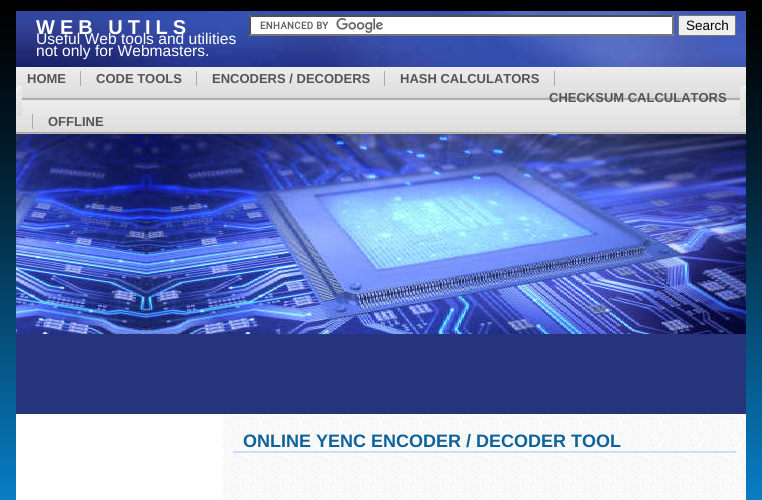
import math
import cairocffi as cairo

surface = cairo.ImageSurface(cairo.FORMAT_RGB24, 762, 500)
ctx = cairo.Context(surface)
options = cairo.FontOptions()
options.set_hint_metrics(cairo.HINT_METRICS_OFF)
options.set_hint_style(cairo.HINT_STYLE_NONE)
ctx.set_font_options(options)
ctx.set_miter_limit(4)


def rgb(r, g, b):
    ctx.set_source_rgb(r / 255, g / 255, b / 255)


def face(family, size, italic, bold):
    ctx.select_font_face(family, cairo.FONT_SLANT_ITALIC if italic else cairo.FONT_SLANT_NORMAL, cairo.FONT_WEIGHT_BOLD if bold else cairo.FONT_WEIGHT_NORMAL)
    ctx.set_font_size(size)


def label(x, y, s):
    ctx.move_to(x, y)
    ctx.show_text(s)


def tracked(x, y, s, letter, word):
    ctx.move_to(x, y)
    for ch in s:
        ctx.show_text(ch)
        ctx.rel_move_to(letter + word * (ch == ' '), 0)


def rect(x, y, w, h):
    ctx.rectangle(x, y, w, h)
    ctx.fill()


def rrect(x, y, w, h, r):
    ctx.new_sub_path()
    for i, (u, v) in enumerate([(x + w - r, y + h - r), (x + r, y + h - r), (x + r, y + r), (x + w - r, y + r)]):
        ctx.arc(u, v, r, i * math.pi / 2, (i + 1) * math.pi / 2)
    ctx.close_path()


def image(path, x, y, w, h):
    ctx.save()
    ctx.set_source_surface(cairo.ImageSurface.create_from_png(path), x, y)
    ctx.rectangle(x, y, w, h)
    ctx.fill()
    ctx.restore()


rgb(255, 255, 255)
ctx.paint()
image('image0.png', 0, 0, 762, 500)
rgb(0, 0, 0)
rect(15, 10, 732, 2)
image('image1.png', 16, 11, 730, 56)
face('Liberation Sans', 20, 0, 1)
rgb(255, 255, 255)
tracked(36, 34, 'WEB UTILS', 5, 0)
face('Liberation Sans', 15.6, 0, 0)
label(36, 44, 'Useful Web tools and utilities')
label(36, 56, 'not only for Webmasters.')
rect(249, 15, 425, 21)
image('image2.png', 260, 18, 123, 15)
rgb(79, 79, 79)
ctx.new_path()
ctx.move_to(249, 15)
ctx.line_to(674, 15)
ctx.line_to(672, 17)
ctx.line_to(251, 17)
ctx.close_path()
ctx.fill()
rgb(118, 118, 118)
ctx.new_path()
ctx.move_to(674, 15)
ctx.line_to(674, 36)
ctx.line_to(672, 34)
ctx.line_to(672, 17)
ctx.close_path()
ctx.fill()
ctx.new_path()
ctx.move_to(674, 36)
ctx.line_to(249, 36)
ctx.line_to(251, 34)
ctx.line_to(672, 34)
ctx.close_path()
ctx.fill()
rgb(79, 79, 79)
ctx.new_path()
ctx.move_to(249, 36)
ctx.line_to(249, 15)
ctx.line_to(251, 17)
ctx.line_to(251, 34)
ctx.close_path()
ctx.fill()
rgb(239, 239, 239)
rrect(678.5, 15.5, 57, 20, 1.5)
ctx.fill_preserve()
rgb(118, 118, 118)
ctx.set_line_width(1)
ctx.stroke()
face('Liberation Sans', 13.5, 0, 0)
rgb(0, 0, 0)
label(686, 30, 'Search')
image('image3.png', 16, 67, 730, 67)
image('image4.png', 16, 86, 6, 30)
face('Liberation Sans', 13, 0, 1)
rgb(85, 85, 85)
label(27, 83, 'HOME')
rgb(170, 170, 170)
rect(80, 71, 1, 15)
rgb(85, 85, 85)
label(96, 83, 'CODE TOOLS')
rgb(170, 170, 170)
rect(196, 71, 1, 15)
rgb(85, 85, 85)
label(212, 83, 'ENCODERS / DECODERS')
rgb(170, 170, 170)
rect(384, 71, 1, 15)
rgb(85, 85, 85)
label(400, 83, 'HASH CALCULATORS')
rgb(170, 170, 170)
rect(554, 71, 1, 15)
rgb(85, 85, 85)
label(549, 102, 'CHECKSUM CALCULATORS')
rgb(170, 170, 170)
rect(32, 114, 1, 15)
rgb(85, 85, 85)
label(48, 126, 'OFFLINE')
image('image5.png', 740, 86, 6, 30)
image('image6.png', 16, 134, 730, 200)
rgb(38, 52, 123)
rect(16, 334, 730, 80)
rgb(255, 255, 255)
rect(16, 414, 207, 86)
image('image7.png', 223, 414, 523, 86)
rgb(198, 222, 255)
rect(233, 451, 503, 2)
face('Liberation Sans', 18, 0, 1)
rgb(16, 99, 154)
label(243, 447, 'ONLINE YENC ENCODER / DECODER TOOL')
surface.write_to_png('render.png')
